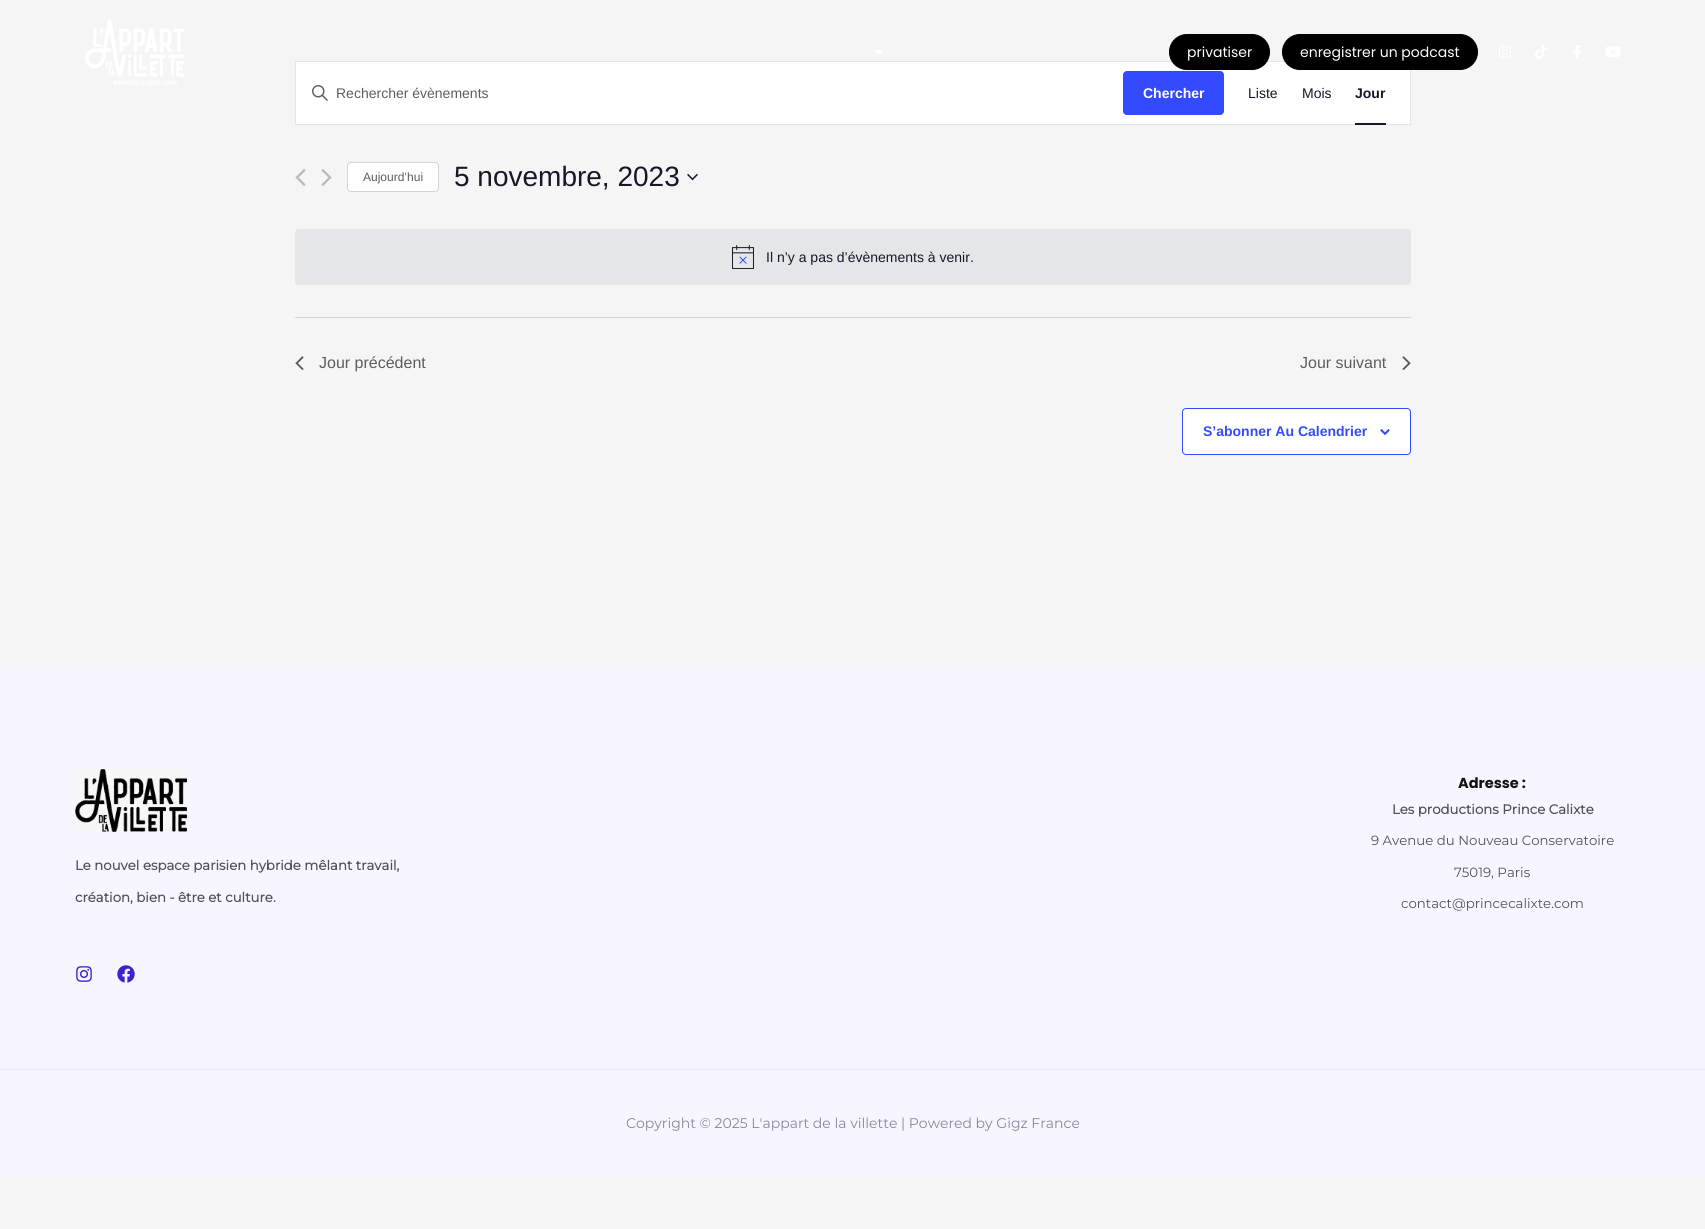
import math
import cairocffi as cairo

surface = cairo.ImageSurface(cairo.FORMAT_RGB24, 1705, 1229)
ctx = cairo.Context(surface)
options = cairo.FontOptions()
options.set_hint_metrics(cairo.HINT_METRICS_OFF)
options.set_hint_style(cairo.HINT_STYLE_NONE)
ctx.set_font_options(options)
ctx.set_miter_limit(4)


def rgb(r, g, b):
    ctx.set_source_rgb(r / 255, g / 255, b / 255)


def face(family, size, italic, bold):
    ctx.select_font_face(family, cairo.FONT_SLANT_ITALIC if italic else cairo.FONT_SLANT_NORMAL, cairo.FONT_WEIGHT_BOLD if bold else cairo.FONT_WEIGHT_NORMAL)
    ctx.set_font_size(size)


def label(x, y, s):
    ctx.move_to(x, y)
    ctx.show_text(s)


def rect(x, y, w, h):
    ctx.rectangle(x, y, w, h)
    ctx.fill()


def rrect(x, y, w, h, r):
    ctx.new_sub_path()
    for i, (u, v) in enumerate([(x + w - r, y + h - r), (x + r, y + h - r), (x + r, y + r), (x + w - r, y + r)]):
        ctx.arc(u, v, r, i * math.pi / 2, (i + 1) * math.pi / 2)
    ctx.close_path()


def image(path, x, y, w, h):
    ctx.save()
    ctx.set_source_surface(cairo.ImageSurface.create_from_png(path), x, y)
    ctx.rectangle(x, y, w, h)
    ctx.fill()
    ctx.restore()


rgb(245, 245, 245)
ctx.paint()
image('image0.png', 85, 20, 99, 65)
rgb(255, 255, 255)
ctx.rectangle(295.5, 61.5, 1115, 63)
ctx.fill_preserve()
rgb(228, 228, 228)
ctx.set_line_width(1)
ctx.stroke()
rrect(305.5, 34.5, 152, 35, 17.5)
ctx.set_source_rgba(1, 1, 1, 0.13)
ctx.stroke()
rrect(465.5, 34.5, 126, 35, 17.5)
ctx.stroke()
rrect(599.5, 34.5, 165, 35, 17.5)
ctx.stroke()
rrect(772.5, 34.5, 128, 35, 17.5)
ctx.stroke()
image('image1.png', 874, 50, 8, 5)
rrect(908.5, 34.5, 90, 35, 17.5)
ctx.stroke()
rgb(0, 0, 0)
rrect(1169.5, 34.5, 100, 35, 17.5)
ctx.fill_preserve()
ctx.stroke()
face('Poppins', 14, 0, 0)
rgb(255, 255, 255)
label(1187, 57, 'privatiser')
rgb(0, 0, 0)
rrect(1282.5, 34.5, 195, 35, 17.5)
ctx.fill_preserve()
ctx.stroke()
rgb(255, 255, 255)
label(1300, 57, 'enregistrer un podcast')
image('image2.png', 1499, 46, 12, 12)
image('image3.png', 1535, 45, 12, 14)
image('image4.png', 1573, 45, 8, 14)
image('image5.png', 1605, 46, 16, 11)
image('image6.png', 312, 85, 16, 16)
face('Liberation Sans', 14, 0, 0)
rgb(93, 93, 93)
label(336, 98, 'Rechercher évènements')
rgb(51, 74, 255)
rrect(1123, 71, 101, 44, 4)
ctx.fill()
face('Liberation Sans', 14, 0, 1)
rgb(255, 255, 255)
label(1143, 98, 'Chercher')
face('Liberation Sans', 14, 0, 0)
rgb(20, 24, 39)
label(1248, 98, 'Liste')
label(1302, 98, 'Mois')
face('Liberation Sans', 14, 0, 1)
label(1355, 98, 'Jour')
rect(1355, 123, 31, 2)
image('image7.png', 295, 169, 11, 17)
image('image8.png', 321, 169, 11, 17)
rgb(255, 255, 255)
rrect(347.5, 162.5, 91, 29, 3.5)
ctx.fill_preserve()
rgb(213, 213, 213)
ctx.stroke()
face('Liberation Sans', 12, 0, 0)
rgb(93, 93, 93)
label(363, 181, 'Aujourd’hui')
face('Liberation Sans', 28, 0, 0)
rgb(20, 24, 39)
label(454, 186, '5 novembre, 2023')
image('image9.png', 687, 173, 11, 8)
rgb(229, 230, 231)
rrect(295, 229, 1116, 56, 4)
ctx.fill()
image('image10.png', 732, 245, 22, 24)
face('Liberation Sans', 14, 0, 0)
rgb(20, 24, 39)
label(766, 262, 'Il n’y a pas d’évènements à venir.')
rgb(213, 213, 213)
rect(295, 317, 1116, 1)
image('image11.png', 295, 356, 9, 14)
face('Liberation Sans', 16, 0, 0)
rgb(93, 93, 93)
label(319, 368, 'Jour précédent')
label(1300, 368, 'Jour suivant')
image('image12.png', 1402, 356, 9, 14)
rgb(255, 255, 255)
rrect(1182.5, 408.5, 228, 46, 3.5)
ctx.fill_preserve()
rgb(51, 74, 255)
ctx.stroke()
face('Liberation Sans', 14, 0, 1)
label(1203, 436, 'S’abonner Au Calendrier')
image('image13.png', 1380, 429, 10, 6)
rgb(247, 246, 254)
rect(0, 665, 1705, 404)
image('image14.png', 75, 769, 112, 63)
face('Montserrat', 13.3, 0, 1)
rgb(82, 80, 94)
label(75, 870, 'Le nouvel espace parisien hybride mêlant travail,')
label(75, 902, 'création, bien - être et culture.')
image('image15.png', 76, 966, 16, 16)
image('image16.png', 117, 965, 18, 18)
face('Poppins', 14.5, 0, 1)
rgb(19, 19, 22)
label(1458, 788, 'Adresse :')
face('Montserrat', 13.3, 0, 1)
rgb(82, 80, 94)
label(1392, 814, 'Les productions Prince Calixte')
face('Montserrat Thin', 13.3, 0, 0)
label(1371, 845, '9 Avenue du Nouveau Conservatoire')
label(1454, 877, '75019, Paris')
label(1401, 908, 'contact@princecalixte.com')
rgb(247, 246, 254)
rect(0, 1070, 1705, 106)
rgb(235, 234, 246)
rect(0, 1069, 1705, 1)
face('Montserrat Thin', 14, 0, 0)
rgb(136, 134, 152)
label(626, 1128, 'Copyright © 2025 L\'appart de la villette | Powered by Gigz France')
surface.write_to_png('render.png')
